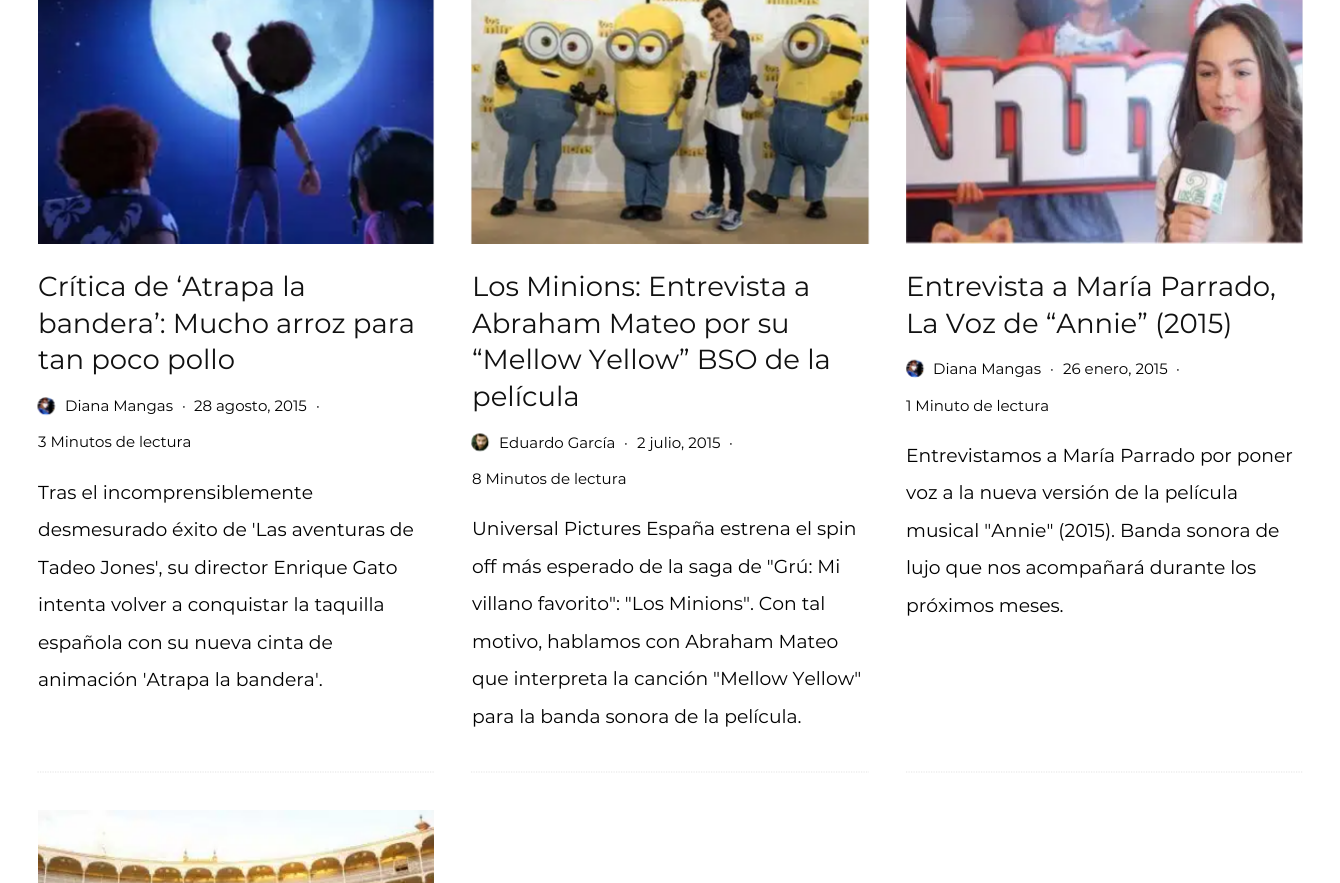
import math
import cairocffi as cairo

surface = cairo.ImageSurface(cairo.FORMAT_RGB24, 1340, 883)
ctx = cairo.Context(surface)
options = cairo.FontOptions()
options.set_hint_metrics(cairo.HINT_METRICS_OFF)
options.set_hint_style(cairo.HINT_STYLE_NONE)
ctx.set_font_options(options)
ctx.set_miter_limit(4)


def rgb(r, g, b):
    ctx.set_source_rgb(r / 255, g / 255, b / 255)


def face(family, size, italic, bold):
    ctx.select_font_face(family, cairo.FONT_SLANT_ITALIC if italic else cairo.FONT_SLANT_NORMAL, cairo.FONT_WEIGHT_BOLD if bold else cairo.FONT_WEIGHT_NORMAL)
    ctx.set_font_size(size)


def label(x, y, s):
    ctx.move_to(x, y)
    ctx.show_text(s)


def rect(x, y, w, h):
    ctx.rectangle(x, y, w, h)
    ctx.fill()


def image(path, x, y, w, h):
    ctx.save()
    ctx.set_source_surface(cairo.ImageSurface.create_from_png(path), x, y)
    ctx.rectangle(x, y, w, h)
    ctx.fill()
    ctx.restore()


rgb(255, 255, 255)
ctx.paint()
ctx.new_path()
ctx.move_to(37.5, 772)
ctx.line_to(434, 772)
rgb(232, 232, 232)
ctx.set_line_width(1.2)
ctx.set_dash([1.25, 1.25])
ctx.stroke()
rgb(238, 238, 238)
rect(433, 0, 1, 244)
image('image0.png', 38, 0, 397, 244)
face('Montserrat', 27.5, 0, 0)
rgb(17, 17, 17)
label(38, 296, 'Crítica de ‘Atrapa la')
label(38, 333, 'bandera’: Mucho arroz para')
label(38, 369, 'tan poco pollo')
image('image1.png', 37, 397, 19, 19)
face('Montserrat', 15, 0, 0)
rgb(0, 0, 0)
label(65, 411, 'Diana Mangas')
label(182, 411, '·')
label(194, 411, '28 agosto, 2015')
label(316, 411, '·')
label(38, 447, '3 Minutos de lectura')
face('Montserrat', 18.75, 0, 0)
label(38, 499, 'Tras el incomprensiblemente')
label(38, 536, 'desmesurado éxito de \'Las aventuras de')
label(38, 574, 'Tadeo Jones\', su director Enrique Gato')
label(38, 611, 'intenta volver a conquistar la taquilla')
label(38, 649, 'española con su nueva cinta de')
label(38, 686, 'animación \'Atrapa la bandera\'.')
ctx.new_path()
ctx.move_to(471, 772)
ctx.line_to(869, 772)
rgb(232, 232, 232)
ctx.stroke()
rgb(238, 238, 238)
rect(471, 0, 398, 244)
image('image2.png', 470, 0, 400, 244)
face('Montserrat', 27.5, 0, 0)
rgb(17, 17, 17)
label(472, 296, 'Los Minions: Entrevista a')
label(472, 333, 'Abraham Mateo por su')
label(472, 369, '“Mellow Yellow” BSO de la')
label(472, 406, 'película')
image('image3.png', 471, 433, 19, 19)
face('Montserrat', 15, 0, 0)
rgb(0, 0, 0)
label(499, 448, 'Eduardo García')
label(624, 448, '·')
label(637, 448, '2 julio, 2015')
label(729, 448, '·')
label(472, 484, '8 Minutos de lectura')
face('Montserrat', 18.75, 0, 0)
label(472, 535, 'Universal Pictures España estrena el spin')
label(472, 573, 'off más esperado de la saga de "Grú: Mi')
label(472, 610, 'villano favorito": "Los Minions". Con tal')
label(472, 648, 'motivo, hablamos con Abraham Mateo')
label(472, 685, 'que interpreta la canción "Mellow Yellow"')
label(472, 723, 'para la banda sonora de la película.')
ctx.new_path()
ctx.move_to(906, 772)
ctx.line_to(1302.5, 772)
rgb(232, 232, 232)
ctx.stroke()
rgb(238, 238, 238)
rect(906, 0, 397, 244)
image('image4.png', 906, 0, 397, 244)
face('Montserrat', 27.5, 0, 0)
rgb(17, 17, 17)
label(906, 296, 'Entrevista a María Parrado,')
label(906, 333, 'La Voz de “Annie” (2015)')
image('image5.png', 906, 359, 19, 19)
face('Montserrat', 15, 0, 0)
rgb(0, 0, 0)
label(933, 374, 'Diana Mangas')
label(1050, 374, '·')
label(1063, 374, '26 enero, 2015')
label(1176, 374, '·')
label(906, 411, '1 Minuto de lectura')
face('Montserrat', 18.75, 0, 0)
label(906, 462, 'Entrevistamos a María Parrado por poner')
label(906, 499, 'voz a la nueva versión de la película')
label(906, 537, 'musical "Annie" (2015). Banda sonora de')
label(906, 574, 'lujo que nos acompañará durante los')
label(906, 612, 'próximos meses.')
image('image6.png', 38, 810, 396, 73)
surface.write_to_png('render.png')
